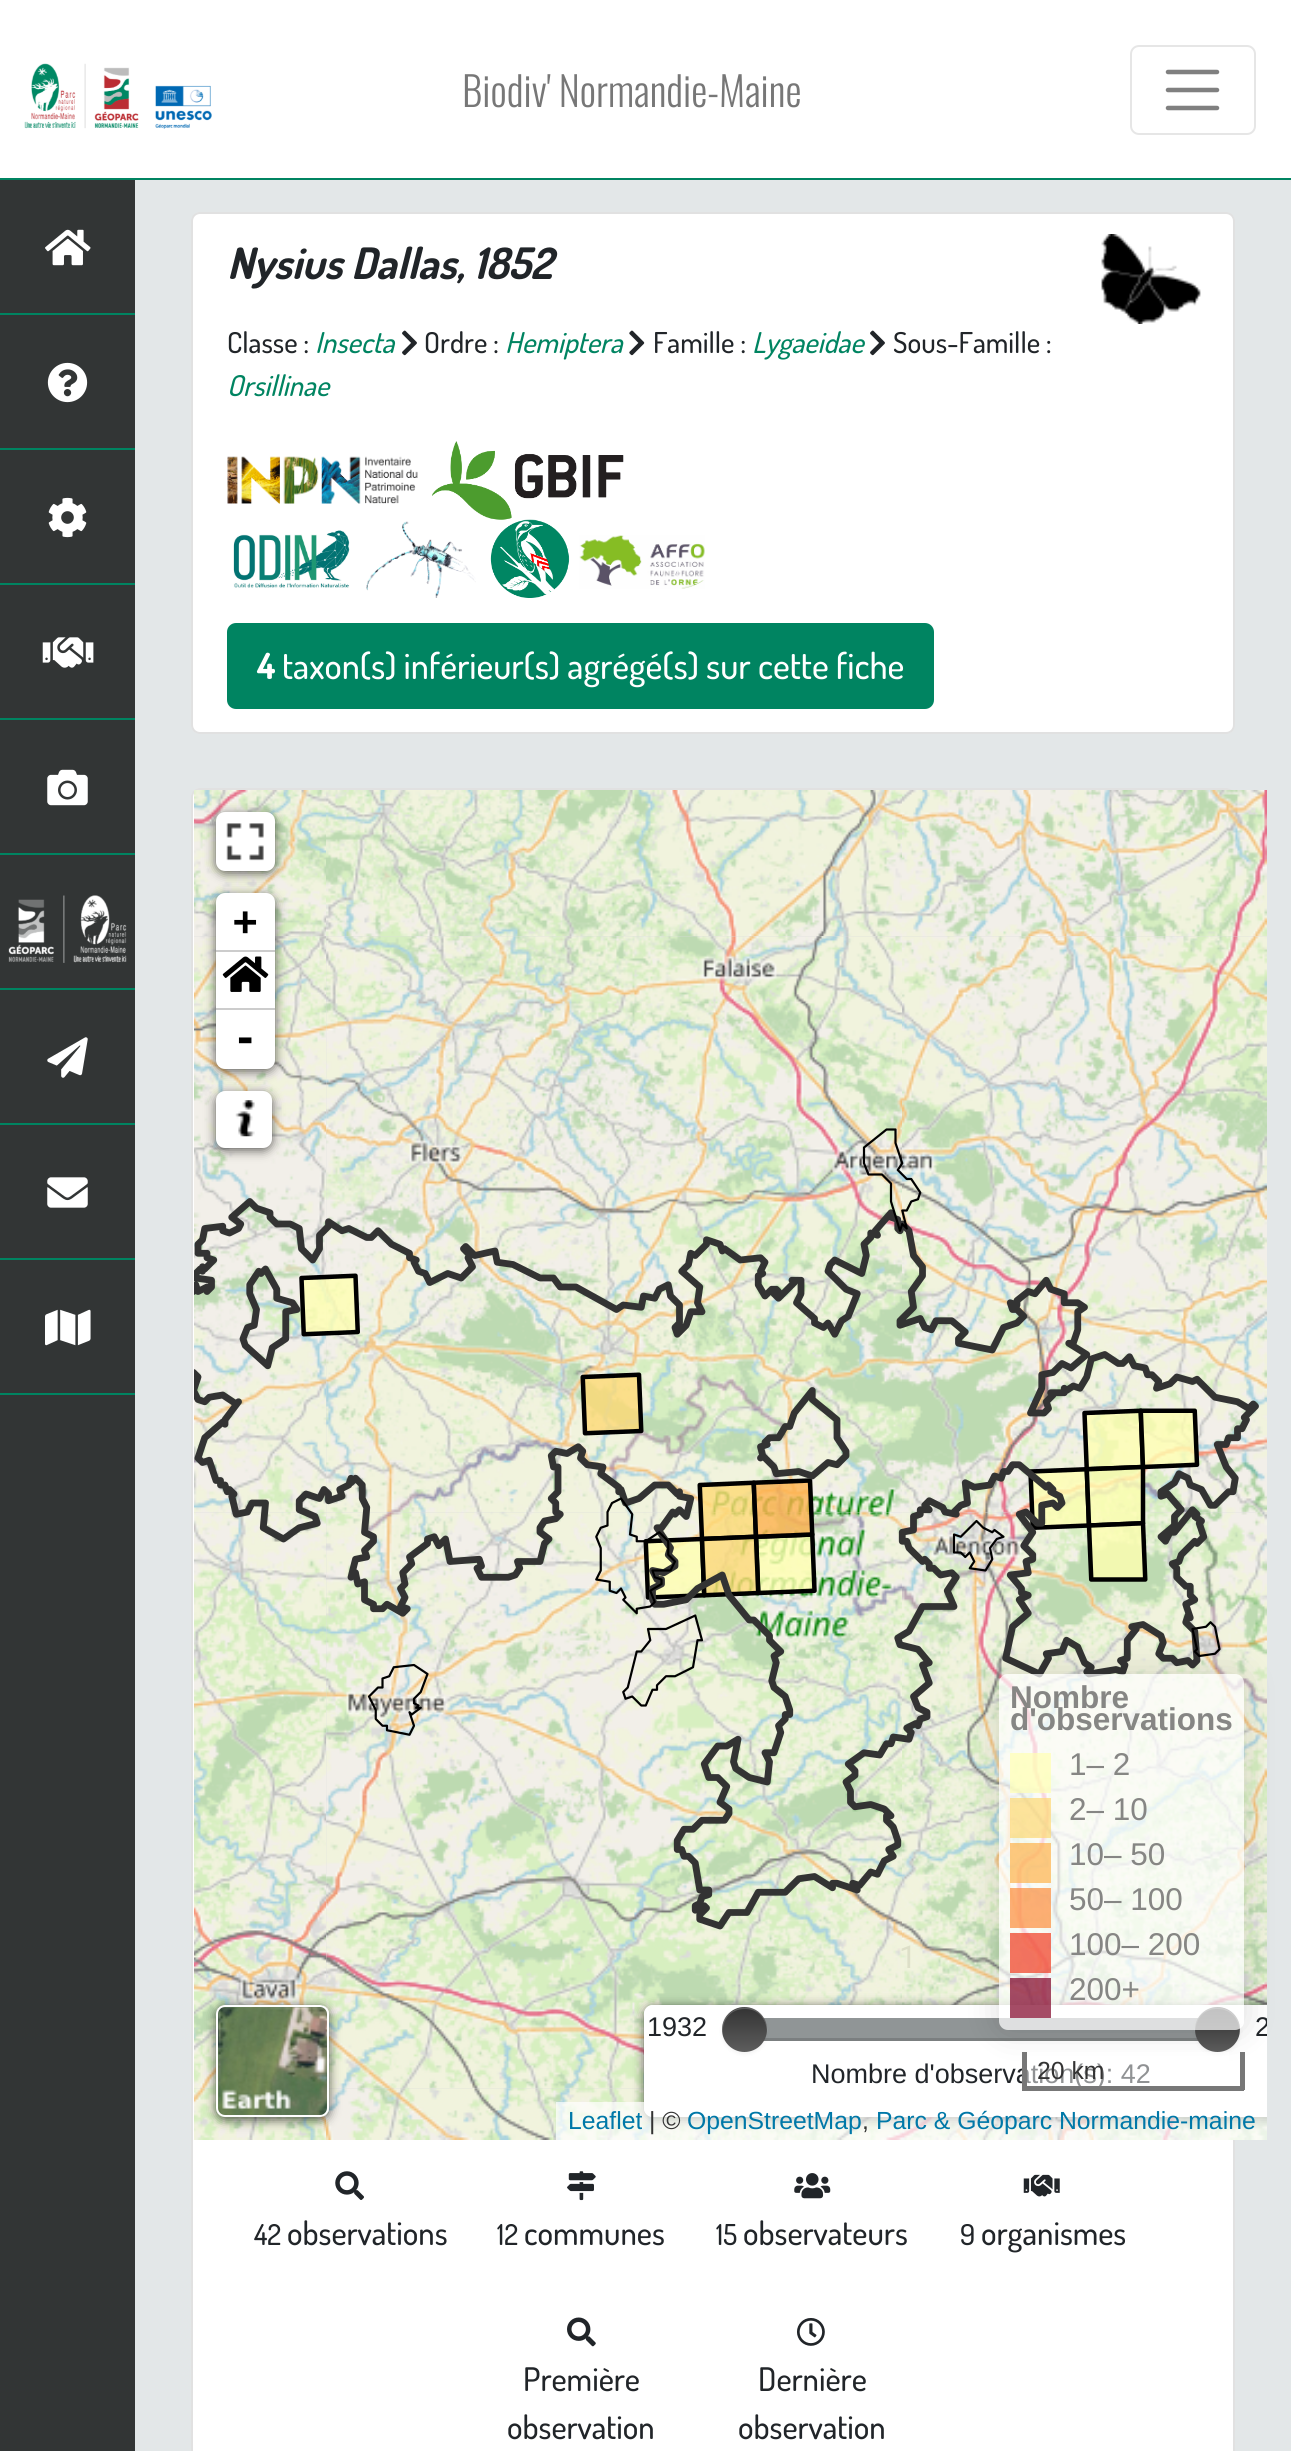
import math
import cairocffi as cairo

surface = cairo.ImageSurface(cairo.FORMAT_RGB24, 1291, 2451)
ctx = cairo.Context(surface)
options = cairo.FontOptions()
options.set_hint_metrics(cairo.HINT_METRICS_OFF)
options.set_hint_style(cairo.HINT_STYLE_NONE)
ctx.set_font_options(options)
ctx.set_miter_limit(4)


def rgb(r, g, b):
    ctx.set_source_rgb(r / 255, g / 255, b / 255)


def face(family, size, italic, bold):
    ctx.select_font_face(family, cairo.FONT_SLANT_ITALIC if italic else cairo.FONT_SLANT_NORMAL, cairo.FONT_WEIGHT_BOLD if bold else cairo.FONT_WEIGHT_NORMAL)
    ctx.set_font_size(size)


def label(x, y, s):
    ctx.move_to(x, y)
    ctx.show_text(s)


def rect(x, y, w, h):
    ctx.rectangle(x, y, w, h)
    ctx.fill()


def rrect(x, y, w, h, r):
    ctx.new_sub_path()
    for i, (u, v) in enumerate([(x + w - r, y + h - r), (x + r, y + h - r), (x + r, y + r), (x + w - r, y + r)]):
        ctx.arc(u, v, r, i * math.pi / 2, (i + 1) * math.pi / 2)
    ctx.close_path()


def soft_shadow(x, y, w, h, r, blur, alpha):
    ctx.push_group_with_content(cairo.CONTENT_ALPHA)
    ctx.set_operator(cairo.OPERATOR_SOURCE)
    for i in range(15, -16, -2):
        e = blur * i / 6
        if min(w, h) + 2 * e > 0:
            ctx.set_source_rgba(0, 0, 0, alpha * math.erfc((i - 1) / 8.5) / 2)
            rrect(x - e, y - e, w + 2 * e, h + 2 * e, max(0, min(r + e + blur * .6, min(w, h) / 2 + e)))
            ctx.fill()
    ctx.mask(ctx.pop_group())


def image(path, x, y, w, h):
    ctx.save()
    ctx.set_source_surface(cairo.ImageSurface.create_from_png(path), x, y)
    ctx.rectangle(x, y, w, h)
    ctx.fill()
    ctx.restore()


rgb(227, 231, 232)
ctx.paint()
rgb(255, 255, 255)
rect(0, 0, 1291, 178)
rgb(0, 132, 97)
rect(0, 178, 1291, 2)
image('image0.png', 24, 63, 188, 66)
face('Oswald Light', 40.5, 0, 0)
rgb(119, 119, 119)
label(462, 107, 'Biodiv\' Normandie-Maine')
rrect(1131, 46, 124, 88, 8)
rgb(230, 230, 230)
ctx.stroke()
ctx.new_path()
ctx.move_to(1168, 72)
ctx.line_to(1217, 72)
ctx.move_to(1168, 90)
ctx.line_to(1217, 90)
ctx.move_to(1168, 108)
ctx.line_to(1217, 108)
rgb(128, 128, 128)
ctx.set_line_width(4.5)
ctx.set_line_cap(cairo.LINE_CAP_ROUND)
ctx.stroke()
rgb(50, 53, 53)
rect(0, 180, 135, 2271)
rgb(0, 132, 97)
rect(0, 313, 135, 2)
image('image1.png', 45, 229, 46, 37)
rect(0, 448, 135, 2)
image('image2.png', 47, 362, 41, 41)
rect(0, 583, 135, 2)
image('image3.png', 48, 497, 39, 41)
rect(0, 718, 135, 2)
image('image4.png', 42, 637, 52, 31)
rect(0, 853, 135, 2)
image('image5.png', 47, 769, 41, 37)
rect(0, 988, 135, 2)
image('image6.png', 8, 895, 119, 68)
rect(0, 1123, 135, 2)
image('image7.png', 47, 1037, 41, 41)
rect(0, 1258, 135, 2)
image('image8.png', 47, 1177, 41, 31)
rect(0, 1393, 135, 2)
image('image9.png', 45, 1309, 46, 37)
rgb(255, 255, 255)
rrect(191, 212, 1044, 522, 9)
ctx.fill()
rrect(192, 213, 1042, 520, 8)
ctx.set_source_rgba(0, 0, 0, 0.12)
ctx.set_line_width(2)
ctx.set_line_cap(cairo.LINE_CAP_BUTT)
ctx.stroke()
face('Dosis', 43.25, 1, 1)
rgb(33, 37, 41)
label(227, 279, 'Nysius Dallas, 1852')
face('Dosis Medium', 28.75, 0, 0)
label(227, 353, 'Classe :')
face('Dosis Medium', 28.75, 1, 0)
rgb(0, 132, 97)
label(315, 353, 'Insecta')
image('image10.png', 402, 330, 15, 26)
face('Dosis Medium', 28.75, 0, 0)
rgb(33, 37, 41)
label(424, 353, 'Ordre :')
face('Dosis Medium', 28.75, 1, 0)
rgb(0, 132, 97)
label(505, 353, 'Hemiptera')
image('image11.png', 629, 330, 16, 26)
face('Dosis Medium', 28.75, 0, 0)
rgb(33, 37, 41)
label(653, 353, 'Famille :')
face('Dosis Medium', 28.75, 1, 0)
rgb(0, 132, 97)
label(752, 353, 'Lygaeidae')
image('image10.png', 870, 330, 15, 26)
face('Dosis Medium', 28.75, 0, 0)
rgb(33, 37, 41)
label(893, 353, 'Sous-Famille :')
face('Dosis Medium', 28.75, 1, 0)
rgb(0, 132, 97)
label(227, 396, 'Orsillinae')
image('image12.png', 227, 456, 191, 48)
image('image13.png', 432, 441, 192, 79)
image('image14.png', 233, 530, 117, 58)
image('image15.png', 366, 521, 110, 77)
image('image16.png', 490, 519, 80, 79)
image('image17.png', 579, 535, 126, 54)
rrect(228, 624, 705, 84, 8)
ctx.fill_preserve()
ctx.stroke()
face('Dosis', 36, 0, 1)
rgb(255, 255, 255)
label(257, 679, '4')
face('Dosis Medium', 36, 0, 0)
label(282, 679, 'taxon(s) inférieur(s) agrégé(s) sur cette fiche')
image('image18.png', 1101, 234, 100, 90)
rrect(191, 788, 1044, 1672, 9)
ctx.fill()
rrect(192, 789, 1042, 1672, 8)
ctx.set_source_rgba(0, 0, 0, 0.12)
ctx.stroke()
rgb(221, 221, 221)
rect(194, 936, 1073, 1153)
image('image19.png', 194, 790, 132, 146)
image('image20.png', 326, 790, 576, 146)
image('image21.png', 902, 790, 365, 146)
image('image22.png', 194, 936, 132, 576)
image('image23.png', 326, 936, 577, 576)
image('image24.png', 902, 936, 365, 576)
image('image25.png', 194, 1511, 132, 577)
image('image26.png', 326, 1511, 577, 577)
image('image27.png', 902, 1511, 365, 494)
image('image28.png', 194, 2087, 132, 53)
image('image29.png', 326, 2087, 576, 53)
image('image30.png', 902, 2117, 365, 23)
image('image31.png', 194, 1128, 1065, 802)
rgb(0, 0, 0)
soft_shadow(216, 815, 59, 58, 9, 5.5, 0.65)
rgb(255, 255, 255)
rrect(216, 812, 59, 59, 9)
ctx.fill()
image('image32.png', 226, 823, 38, 38)
rgb(0, 0, 0)
soft_shadow(216, 896, 59, 175, 9, 5.5, 0.65)
rgb(255, 255, 255)
ctx.new_path()
ctx.move_to(225, 893)
ctx.line_to(266, 893)
ctx.curve_to(271, 893, 275, 897, 275, 902)
ctx.line_to(275, 952)
ctx.line_to(216, 952)
ctx.line_to(216, 902)
ctx.curve_to(216, 897, 220, 893, 225, 893)
ctx.close_path()
ctx.fill()
rgb(204, 204, 204)
rect(216, 950, 59, 2)
face('DejaVu Sans Mono', 40.5, 0, 1)
rgb(0, 0, 0)
label(233, 935, '+')
rgb(255, 255, 255)
rect(216, 952, 59, 56)
rgb(204, 204, 204)
rect(216, 1008, 59, 2)
image('image33.png', 222, 956, 47, 36)
rgb(255, 255, 255)
ctx.new_path()
ctx.move_to(216, 1010)
ctx.line_to(275, 1010)
ctx.line_to(275, 1060)
ctx.curve_to(275, 1065, 271, 1069, 266, 1069)
ctx.line_to(225, 1069)
ctx.curve_to(220, 1069, 216, 1065, 216, 1060)
ctx.close_path()
ctx.fill()
rgb(0, 0, 0)
label(233, 1052, '-')
rgb(0, 0, 0)
soft_shadow(216, 1094, 56, 56, 9, 5.5, 0.65)
rgb(255, 255, 255)
rrect(217, 1092, 54, 55, 8)
ctx.fill_preserve()
ctx.stroke()
image('image34.png', 235, 1100, 20, 37)
ctx.save()
ctx.rectangle(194, 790, 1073, 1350)
ctx.clip()
rgb(0, 0, 0)
soft_shadow(644, 2007, 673, 113, 9, 5.5, 0.65)
ctx.restore()
ctx.new_path()
ctx.move_to(653, 2005)
ctx.line_to(1267, 2005)
ctx.line_to(1267, 2117)
ctx.line_to(653, 2117)
ctx.curve_to(648, 2117, 644, 2113, 644, 2108)
ctx.line_to(644, 2014)
ctx.curve_to(644, 2009, 648, 2005, 653, 2005)
ctx.close_path()
ctx.fill()
ctx.save()
ctx.rectangle(194, 790, 1073, 1350)
ctx.clip()
rrect(645, 2006, 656, 110, 8)
ctx.stroke()
ctx.restore()
rgb(144, 149, 150)
rect(763, 2018, 436, 23)
ctx.set_source_rgba(0, 0, 0, 0.15)
ctx.new_path()
ctx.move_to(745, 2031)
ctx.line_to(745, 2032)
ctx.curve_to(745, 2037, 749, 2041, 754, 2041)
ctx.line_to(1208, 2041)
ctx.curve_to(1213, 2041, 1217, 2037, 1217, 2032)
ctx.line_to(1215, 2036)
ctx.curve_to(1213, 2038, 1211, 2038, 1208, 2038)
ctx.line_to(754, 2038)
ctx.curve_to(749, 2038, 746, 2035, 745, 2031)
ctx.close_path()
ctx.fill()
rgb(0, 0, 0)
soft_shadow(1195, 2009, 45, 45, 22.5, 2, 0.05)
gradient = cairo.LinearGradient(1217, 2007, 1217, 2052)
gradient.add_color_stop_rgba(0, 0.2, 0.2, 0.2, 1)
gradient.add_color_stop_rgba(1, 0.365, 0.365, 0.365, 1)
ctx.set_source(gradient)
ctx.arc(1217.5, 2029.5, 22.5, 0, 2 * math.pi)
ctx.fill()
ctx.set_source_rgba(1, 1, 1, 0.2)
ctx.new_path()
ctx.move_to(1217, 2009)
ctx.curve_to(1234, 2009, 1241, 2023, 1239, 2036)
ctx.curve_to(1246, 2012, 1213, 1996, 1199, 2017)
ctx.curve_to(1196, 2022, 1194, 2028, 1195, 2033)
ctx.curve_to(1195, 2021, 1202, 2009, 1217, 2009)
ctx.close_path()
ctx.fill()
ctx.save()
ctx.set_fill_rule(cairo.FILL_RULE_EVEN_ODD)
ctx.new_path()
ctx.move_to(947, 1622)
ctx.line_to(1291, 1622)
ctx.line_to(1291, 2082)
ctx.line_to(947, 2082)
ctx.close_path()
ctx.move_to(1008, 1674)
ctx.line_to(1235, 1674)
ctx.curve_to(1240, 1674, 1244, 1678, 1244, 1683)
ctx.line_to(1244, 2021)
ctx.curve_to(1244, 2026, 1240, 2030, 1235, 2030)
ctx.line_to(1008, 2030)
ctx.curve_to(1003, 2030, 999, 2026, 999, 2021)
ctx.line_to(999, 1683)
ctx.curve_to(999, 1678, 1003, 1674, 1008, 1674)
ctx.close_path()
ctx.clip()
rgb(0, 0, 0)
soft_shadow(999, 1674, 245, 356, 9, 17, 0.14)
ctx.restore()
ctx.set_source_rgba(1, 1, 1, 0.7)
rrect(999, 1674, 245, 356, 9)
ctx.fill()
face('Liberation Sans', 31.5, 0, 1)
rgb(134, 134, 132)
label(1010, 1708, 'Nombre')
label(1010, 1730, 'd\'observations')
ctx.set_source_rgba(1, 1, 0.698, 0.7)
rect(1010, 1753, 41, 40)
face('Liberation Sans', 31.5, 0, 0)
rgb(134, 134, 132)
label(1069, 1775, '1– 2')
ctx.set_source_rgba(0.996, 0.851, 0.463, 0.7)
rect(1010, 1798, 41, 40)
rgb(134, 134, 132)
label(1069, 1820, '2– 10')
ctx.set_source_rgba(0.996, 0.698, 0.298, 0.7)
rect(1010, 1843, 41, 40)
rgb(134, 134, 132)
label(1069, 1865, '10– 50')
ctx.set_source_rgba(0.992, 0.553, 0.235, 0.7)
rect(1010, 1888, 41, 40)
rgb(134, 134, 132)
label(1069, 1910, '50– 100')
ctx.set_source_rgba(0.941, 0.231, 0.125, 0.7)
rect(1010, 1933, 41, 40)
rgb(134, 134, 132)
label(1069, 1955, '100– 200')
ctx.set_source_rgba(0.502, 0, 0.149, 0.7)
rect(1010, 1978, 41, 40)
rgb(134, 134, 132)
label(1069, 2000, '200+')
face('Liberation Sans', 27, 0, 0)
rgb(33, 37, 41)
label(811, 2083, 'Nombre d\'observation(s): 42')
ctx.set_source_rgba(1, 1, 1, 0.5)
rect(1027, 2052, 202, 34)
rgb(119, 119, 119)
rect(1240, 2052, 5, 38)
rect(1022, 2086, 222, 5)
rect(1022, 2052, 5, 38)
face('Liberation Sans', 24.75, 0, 0)
rgb(51, 51, 51)
label(1037, 2079, '20 km')
ctx.set_source_rgba(1, 1, 1, 0.7)
rect(556, 2102, 711, 38)
rgb(0, 120, 168)
label(568, 2129, 'Leaflet')
rgb(51, 51, 51)
label(649, 2129, '| ©')
rgb(0, 120, 168)
label(687, 2129, 'OpenStreetMap')
rgb(51, 51, 51)
label(862, 2129, ',')
rgb(0, 120, 168)
label(876, 2129, 'Parc & Géoparc Normandie-maine')
ctx.save()
ctx.set_fill_rule(cairo.FILL_RULE_EVEN_ODD)
ctx.new_path()
ctx.move_to(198, 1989)
ctx.line_to(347, 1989)
ctx.line_to(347, 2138)
ctx.line_to(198, 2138)
ctx.close_path()
ctx.move_to(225, 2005)
ctx.line_to(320, 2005)
ctx.curve_to(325, 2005, 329, 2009, 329, 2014)
ctx.line_to(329, 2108)
ctx.curve_to(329, 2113, 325, 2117, 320, 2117)
ctx.line_to(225, 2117)
ctx.curve_to(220, 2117, 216, 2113, 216, 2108)
ctx.line_to(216, 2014)
ctx.curve_to(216, 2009, 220, 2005, 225, 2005)
ctx.close_path()
ctx.clip()
rgb(0, 0, 0)
soft_shadow(216, 2007, 113, 113, 9, 5.5, 0.65)
ctx.restore()
image('image35.png', 216, 2004, 113, 114)
rrect(217, 2006, 111, 110, 8)
rgb(255, 255, 255)
ctx.stroke()
face('Roboto', 31.5, 0, 0)
rgb(221, 223, 200)
label(899, 1968, '1')
rgb(0, 0, 0)
soft_shadow(722, 2009, 45, 45, 22.5, 2, 0.05)
gradient = cairo.LinearGradient(745, 2007, 745, 2052)
gradient.add_color_stop_rgba(0, 0.2, 0.2, 0.2, 1)
gradient.add_color_stop_rgba(1, 0.365, 0.365, 0.365, 1)
ctx.set_source(gradient)
ctx.arc(744.5, 2029.5, 22.5, 0, 2 * math.pi)
ctx.fill()
ctx.set_source_rgba(1, 1, 1, 0.2)
ctx.new_path()
ctx.move_to(745, 2009)
ctx.curve_to(760, 2009, 767, 2021, 767, 2033)
ctx.curve_to(768, 2028, 766, 2022, 763, 2017)
ctx.curve_to(749, 1996, 716, 2012, 723, 2036)
ctx.curve_to(721, 2023, 728, 2009, 745, 2009)
ctx.close_path()
ctx.fill()
face('Liberation Sans', 27, 0, 0)
rgb(33, 37, 41)
label(647, 2036, '1932')
ctx.save()
ctx.rectangle(194, 790, 1073, 1350)
ctx.clip()
label(1255, 2036, '2')
ctx.restore()
image('image36.png', 335, 2171, 29, 29)
face('Dosis Medium', 28.75, 0, 0)
label(254, 2245, '42')
face('Dosis Medium', 32.5, 0, 0)
label(287, 2245, 'observations')
image('image37.png', 567, 2171, 29, 30)
face('Dosis Medium', 28.75, 0, 0)
label(497, 2245, '12')
face('Dosis Medium', 32.5, 0, 0)
label(524, 2245, 'communes')
image('image38.png', 794, 2173, 37, 26)
face('Dosis Medium', 28.75, 0, 0)
label(716, 2245, '15')
face('Dosis Medium', 32.5, 0, 0)
label(743, 2245, 'observateurs')
image('image39.png', 1023, 2174, 37, 23)
face('Dosis Medium', 28.75, 0, 0)
label(960, 2245, '9')
face('Dosis Medium', 32.5, 0, 0)
label(981, 2245, 'organismes')
image('image40.png', 567, 2317, 29, 30)
label(523, 2391, 'Première')
label(507, 2439, 'observation')
image('image41.png', 797, 2318, 28, 28)
label(758, 2391, 'Dernière')
label(738, 2439, 'observation')
surface.write_to_png('render.png')
